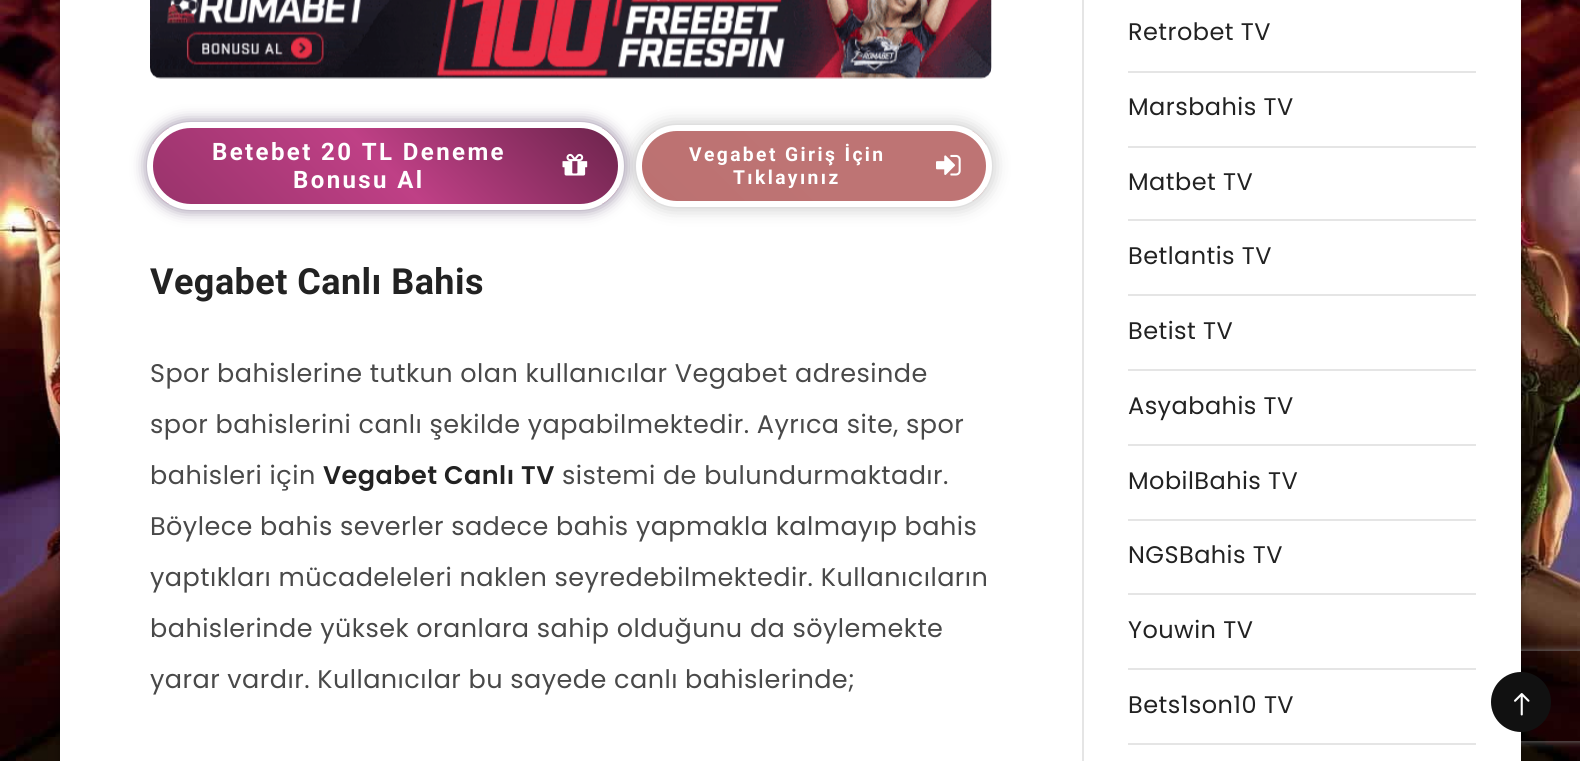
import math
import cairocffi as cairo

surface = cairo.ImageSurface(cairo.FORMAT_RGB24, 1580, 761)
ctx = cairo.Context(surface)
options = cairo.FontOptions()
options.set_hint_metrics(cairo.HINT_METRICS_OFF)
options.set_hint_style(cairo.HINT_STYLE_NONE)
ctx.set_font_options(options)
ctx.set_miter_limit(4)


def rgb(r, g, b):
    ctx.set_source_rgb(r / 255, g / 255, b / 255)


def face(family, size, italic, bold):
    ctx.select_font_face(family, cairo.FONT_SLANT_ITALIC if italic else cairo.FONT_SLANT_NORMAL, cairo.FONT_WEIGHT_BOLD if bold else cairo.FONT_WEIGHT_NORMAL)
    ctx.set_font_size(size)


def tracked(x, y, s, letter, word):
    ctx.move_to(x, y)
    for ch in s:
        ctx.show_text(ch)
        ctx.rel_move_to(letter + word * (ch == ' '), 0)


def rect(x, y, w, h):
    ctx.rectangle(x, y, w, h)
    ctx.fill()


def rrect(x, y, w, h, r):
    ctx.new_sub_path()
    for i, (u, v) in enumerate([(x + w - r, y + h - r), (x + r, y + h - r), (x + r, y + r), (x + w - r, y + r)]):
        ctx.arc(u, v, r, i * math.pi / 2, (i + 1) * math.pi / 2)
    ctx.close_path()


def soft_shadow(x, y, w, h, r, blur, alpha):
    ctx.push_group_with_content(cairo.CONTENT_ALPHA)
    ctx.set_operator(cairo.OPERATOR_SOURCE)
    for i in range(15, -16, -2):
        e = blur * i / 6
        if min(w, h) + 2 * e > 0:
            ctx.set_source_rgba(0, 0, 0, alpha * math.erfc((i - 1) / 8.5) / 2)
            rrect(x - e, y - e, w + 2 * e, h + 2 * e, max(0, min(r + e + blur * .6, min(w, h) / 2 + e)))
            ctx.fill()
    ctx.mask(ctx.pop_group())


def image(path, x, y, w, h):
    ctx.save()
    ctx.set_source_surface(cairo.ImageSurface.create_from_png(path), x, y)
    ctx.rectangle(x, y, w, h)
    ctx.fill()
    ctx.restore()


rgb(255, 255, 255)
ctx.paint()
image('image0.png', 0, 0, 1580, 761)
rgb(0, 0, 0)
soft_shadow(60, -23, 1461, 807, 11, 4, 0.3)
ctx.save()
ctx.set_fill_rule(cairo.FILL_RULE_EVEN_ODD)
ctx.new_path()
ctx.move_to(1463, 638)
ctx.line_to(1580, 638)
ctx.line_to(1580, 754)
ctx.line_to(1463, 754)
ctx.close_path()
ctx.move_to(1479, 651)
ctx.line_to(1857, 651)
ctx.curve_to(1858.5, 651, 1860, 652.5, 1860, 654)
ctx.line_to(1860, 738)
ctx.curve_to(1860, 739.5, 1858.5, 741, 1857, 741)
ctx.line_to(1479, 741)
ctx.curve_to(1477.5, 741, 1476, 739.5, 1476, 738)
ctx.line_to(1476, 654)
ctx.curve_to(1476, 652.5, 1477.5, 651, 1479, 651)
ctx.close_path()
ctx.clip()
rgb(128, 128, 128)
soft_shadow(1476, 651, 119, 90, 3, 4, 1)
ctx.restore()
rgb(255, 255, 255)
rect(60, 0, 1461, 761)
rgb(229, 229, 229)
rect(1082, 0, 2, 761)
image('image1.png', 150, 0, 842, 79)
rgb(145, 131, 157)
soft_shadow(147, 122, 477, 88, 44, 7.5, 1)
ctx.save()
rrect(147, 122, 477, 88, 44)
ctx.clip()
gradient = cairo.LinearGradient(250, 301, 521, 30)
gradient.add_color_stop_rgba(0, 0.6, 0.2, 0.42, 1)
gradient.add_color_stop_rgba(0.5, 0.749, 0.251, 0.525, 1)
gradient.add_color_stop_rgba(1, 0.424, 0.141, 0.298, 1)
ctx.set_source(gradient)
rect(153, 128, 465, 76)
ctx.restore()
rrect(150, 125, 471, 82, 41)
rgb(255, 255, 255)
ctx.set_line_width(6)
ctx.stroke()
face('Roboto', 24, 0, 1)
tracked(212, 160, 'Betebet 20 TL Deneme', 2.4, 0)
image('image2.png', 562, 153, 26, 23)
tracked(293, 188, 'Bonusu Al', 2.4, 0)
rgb(0, 0, 0)
soft_shadow(636, 125, 356, 82, 41, 9, 0.25)
ctx.save()
rrect(636, 125, 356, 82, 41)
ctx.clip()
gradient = cairo.LinearGradient(710, 269, 917, 62)
gradient.add_color_stop_rgba(0, 0.737, 0.443, 0.443, 1)
gradient.add_color_stop_rgba(0.5, 0.745, 0.455, 0.455, 1)
ctx.set_source(gradient)
rect(642, 131, 344, 70)
ctx.restore()
rrect(639, 128, 350, 76, 38)
rgb(255, 255, 255)
ctx.stroke()
face('Roboto', 19.25, 0, 1)
tracked(689, 161, 'Vegabet Giriş İçin', 2.4, 0)
image('image3.png', 936, 154, 25, 22)
tracked(733, 184, 'Tıklayınız', 2.4, 0)
face('Roboto', 36, 0, 1)
rgb(34, 34, 34)
tracked(150, 294, 'Vegabet Canlı Bahis', 0.45, 0)
face('Poppins', 25.5, 0, 0)
rgb(73, 73, 73)
tracked(150, 382, 'Spor bahislerine tutkun olan kullanıcılar Vegabet adresinde', 0.45, 0)
tracked(150, 433, 'spor bahislerini canlı şekilde yapabilmektedir. Ayrıca site, spor', 0.45, 0)
tracked(150, 484, 'bahisleri için', 0.45, 0)
face('Poppins SemiBold', 25.5, 0, 0)
rgb(34, 34, 34)
tracked(323, 484, 'Vegabet Canlı TV', 0.45, 0)
face('Poppins', 25.5, 0, 0)
rgb(73, 73, 73)
tracked(562, 484, 'sistemi de bulundurmaktadır.', 0.45, 0)
tracked(150, 535, 'Böylece bahis severler sadece bahis yapmakla kalmayıp bahis', 0.45, 0)
tracked(150, 586, 'yaptıkları mücadeleleri naklen seyredebilmektedir. Kullanıcıların', 0.45, 0)
tracked(150, 637, 'bahislerinde yüksek oranlara sahip olduğunu da söylemekte', 0.45, 0)
tracked(150, 688, 'yarar vardır. Kullanıcılar bu sayede canlı bahislerinde;', 0.45, 0)
rgb(229, 229, 229)
rect(1128, 71, 348, 2)
face('Poppins', 24, 0, 0)
rgb(34, 34, 34)
tracked(1128, 40, 'Retrobet TV', 0.45, 0)
rgb(229, 229, 229)
rect(1128, 146, 348, 2)
rgb(34, 34, 34)
tracked(1128, 115, 'Marsbahis TV', 0.45, 0)
rgb(229, 229, 229)
rect(1128, 219, 348, 2)
rgb(34, 34, 34)
tracked(1128, 190, 'Matbet TV', 0.45, 0)
rgb(229, 229, 229)
rect(1128, 294, 348, 2)
rgb(34, 34, 34)
tracked(1128, 264, 'Betlantis TV', 0.45, 0)
rgb(229, 229, 229)
rect(1128, 369, 348, 2)
rgb(34, 34, 34)
tracked(1128, 339, 'Betist TV', 0.45, 0)
rgb(229, 229, 229)
rect(1128, 444, 348, 2)
rgb(34, 34, 34)
tracked(1128, 414, 'Asyabahis TV', 0.45, 0)
rgb(229, 229, 229)
rect(1128, 519, 348, 2)
rgb(34, 34, 34)
tracked(1128, 489, 'MobilBahis TV', 0.45, 0)
rgb(229, 229, 229)
rect(1128, 593, 348, 2)
rgb(34, 34, 34)
tracked(1128, 563, 'NGSBahis TV', 0.45, 0)
rgb(229, 229, 229)
rect(1128, 668, 348, 2)
rgb(34, 34, 34)
tracked(1128, 638, 'Youwin TV', 0.45, 0)
rgb(229, 229, 229)
rect(1128, 743, 348, 2)
rgb(34, 34, 34)
tracked(1128, 713, 'Bets1son10 TV', 0.45, 0)
rgb(17, 17, 17)
ctx.new_path()
ctx.arc(1521, 702, 30, 0, 2 * math.pi)
ctx.fill()
image('image4.png', 1514, 693, 16, 23)
surface.write_to_png('render.png')
